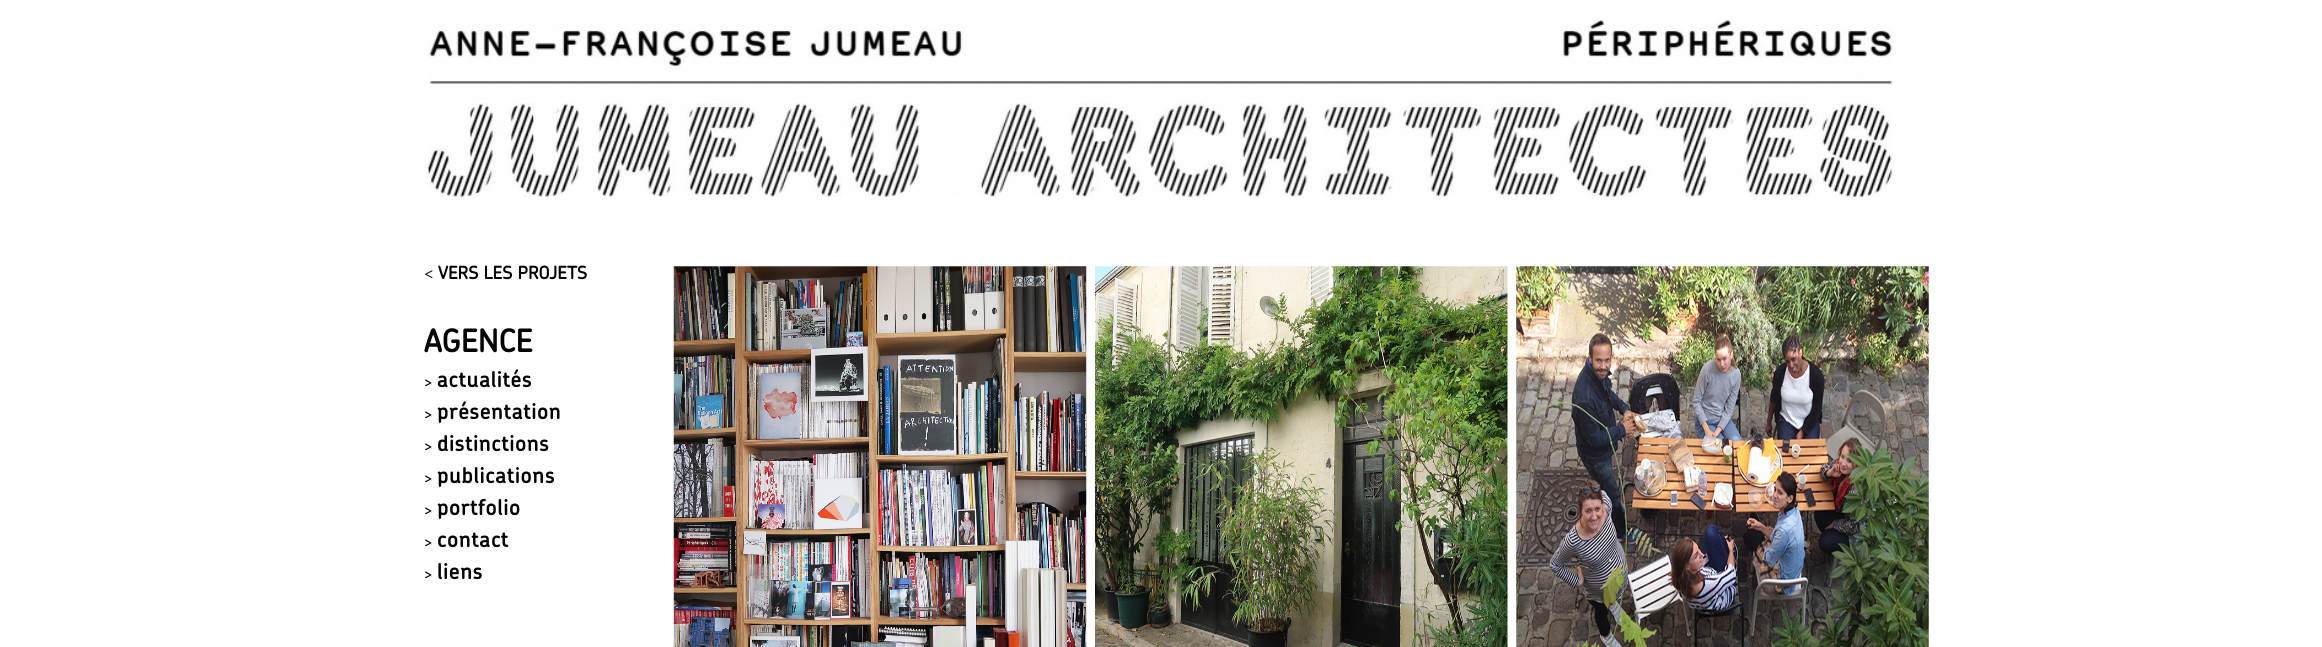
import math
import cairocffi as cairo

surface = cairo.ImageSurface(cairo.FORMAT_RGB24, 2322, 647)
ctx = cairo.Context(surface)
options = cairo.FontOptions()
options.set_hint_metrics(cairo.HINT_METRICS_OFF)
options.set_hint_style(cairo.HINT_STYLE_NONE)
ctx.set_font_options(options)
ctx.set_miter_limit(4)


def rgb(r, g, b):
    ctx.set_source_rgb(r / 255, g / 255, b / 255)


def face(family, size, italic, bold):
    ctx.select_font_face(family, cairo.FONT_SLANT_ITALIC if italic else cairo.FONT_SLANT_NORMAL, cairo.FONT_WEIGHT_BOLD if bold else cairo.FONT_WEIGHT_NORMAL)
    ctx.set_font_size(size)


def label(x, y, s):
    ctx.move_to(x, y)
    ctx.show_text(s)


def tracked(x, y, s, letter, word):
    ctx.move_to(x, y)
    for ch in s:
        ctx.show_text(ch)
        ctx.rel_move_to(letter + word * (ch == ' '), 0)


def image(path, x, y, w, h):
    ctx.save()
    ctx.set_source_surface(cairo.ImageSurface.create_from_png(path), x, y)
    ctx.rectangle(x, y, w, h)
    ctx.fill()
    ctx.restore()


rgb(255, 255, 255)
ctx.paint()
image('image0.png', 427, 19, 1467, 178)
face('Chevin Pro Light', 17.5, 0, 0)
rgb(0, 0, 0)
label(424, 279, '<')
face('Chevin Pro', 17.5, 0, 1)
label(438, 279, 'VERS LES PROJETS')
face('Chevin Pro', 31, 0, 1)
label(424, 352, 'AGENCE')
face('Chevin Pro Medium', 15, 0, 0)
label(424, 387, '>')
face('Chevin Pro', 21.25, 0, 1)
tracked(437, 387, 'actualités', 0.9, 0)
face('Chevin Pro Medium', 15, 0, 0)
label(424, 419, '>')
face('Chevin Pro', 21.25, 0, 1)
tracked(437, 419, 'présentation', 0.9, 0)
face('Chevin Pro Medium', 15, 0, 0)
label(424, 451, '>')
face('Chevin Pro', 21.25, 0, 1)
tracked(437, 451, 'distinctions', 0.9, 0)
face('Chevin Pro Medium', 15, 0, 0)
label(424, 483, '>')
face('Chevin Pro', 21.25, 0, 1)
tracked(437, 483, 'publications', 0.9, 0)
face('Chevin Pro Medium', 15, 0, 0)
label(424, 515, '>')
face('Chevin Pro', 21.25, 0, 1)
tracked(437, 515, 'portfolio', 0.9, 0)
face('Chevin Pro Medium', 15, 0, 0)
label(424, 547, '>')
face('Chevin Pro', 21.25, 0, 1)
tracked(437, 547, 'contact', 0.9, 0)
face('Chevin Pro Medium', 15, 0, 0)
label(424, 579, '>')
face('Chevin Pro', 21.25, 0, 1)
tracked(437, 579, 'liens', 0.9, 0)
image('image1.png', 673, 266, 414, 381)
image('image2.png', 1095, 266, 413, 381)
image('image3.png', 1516, 266, 413, 381)
surface.write_to_png('render.png')
